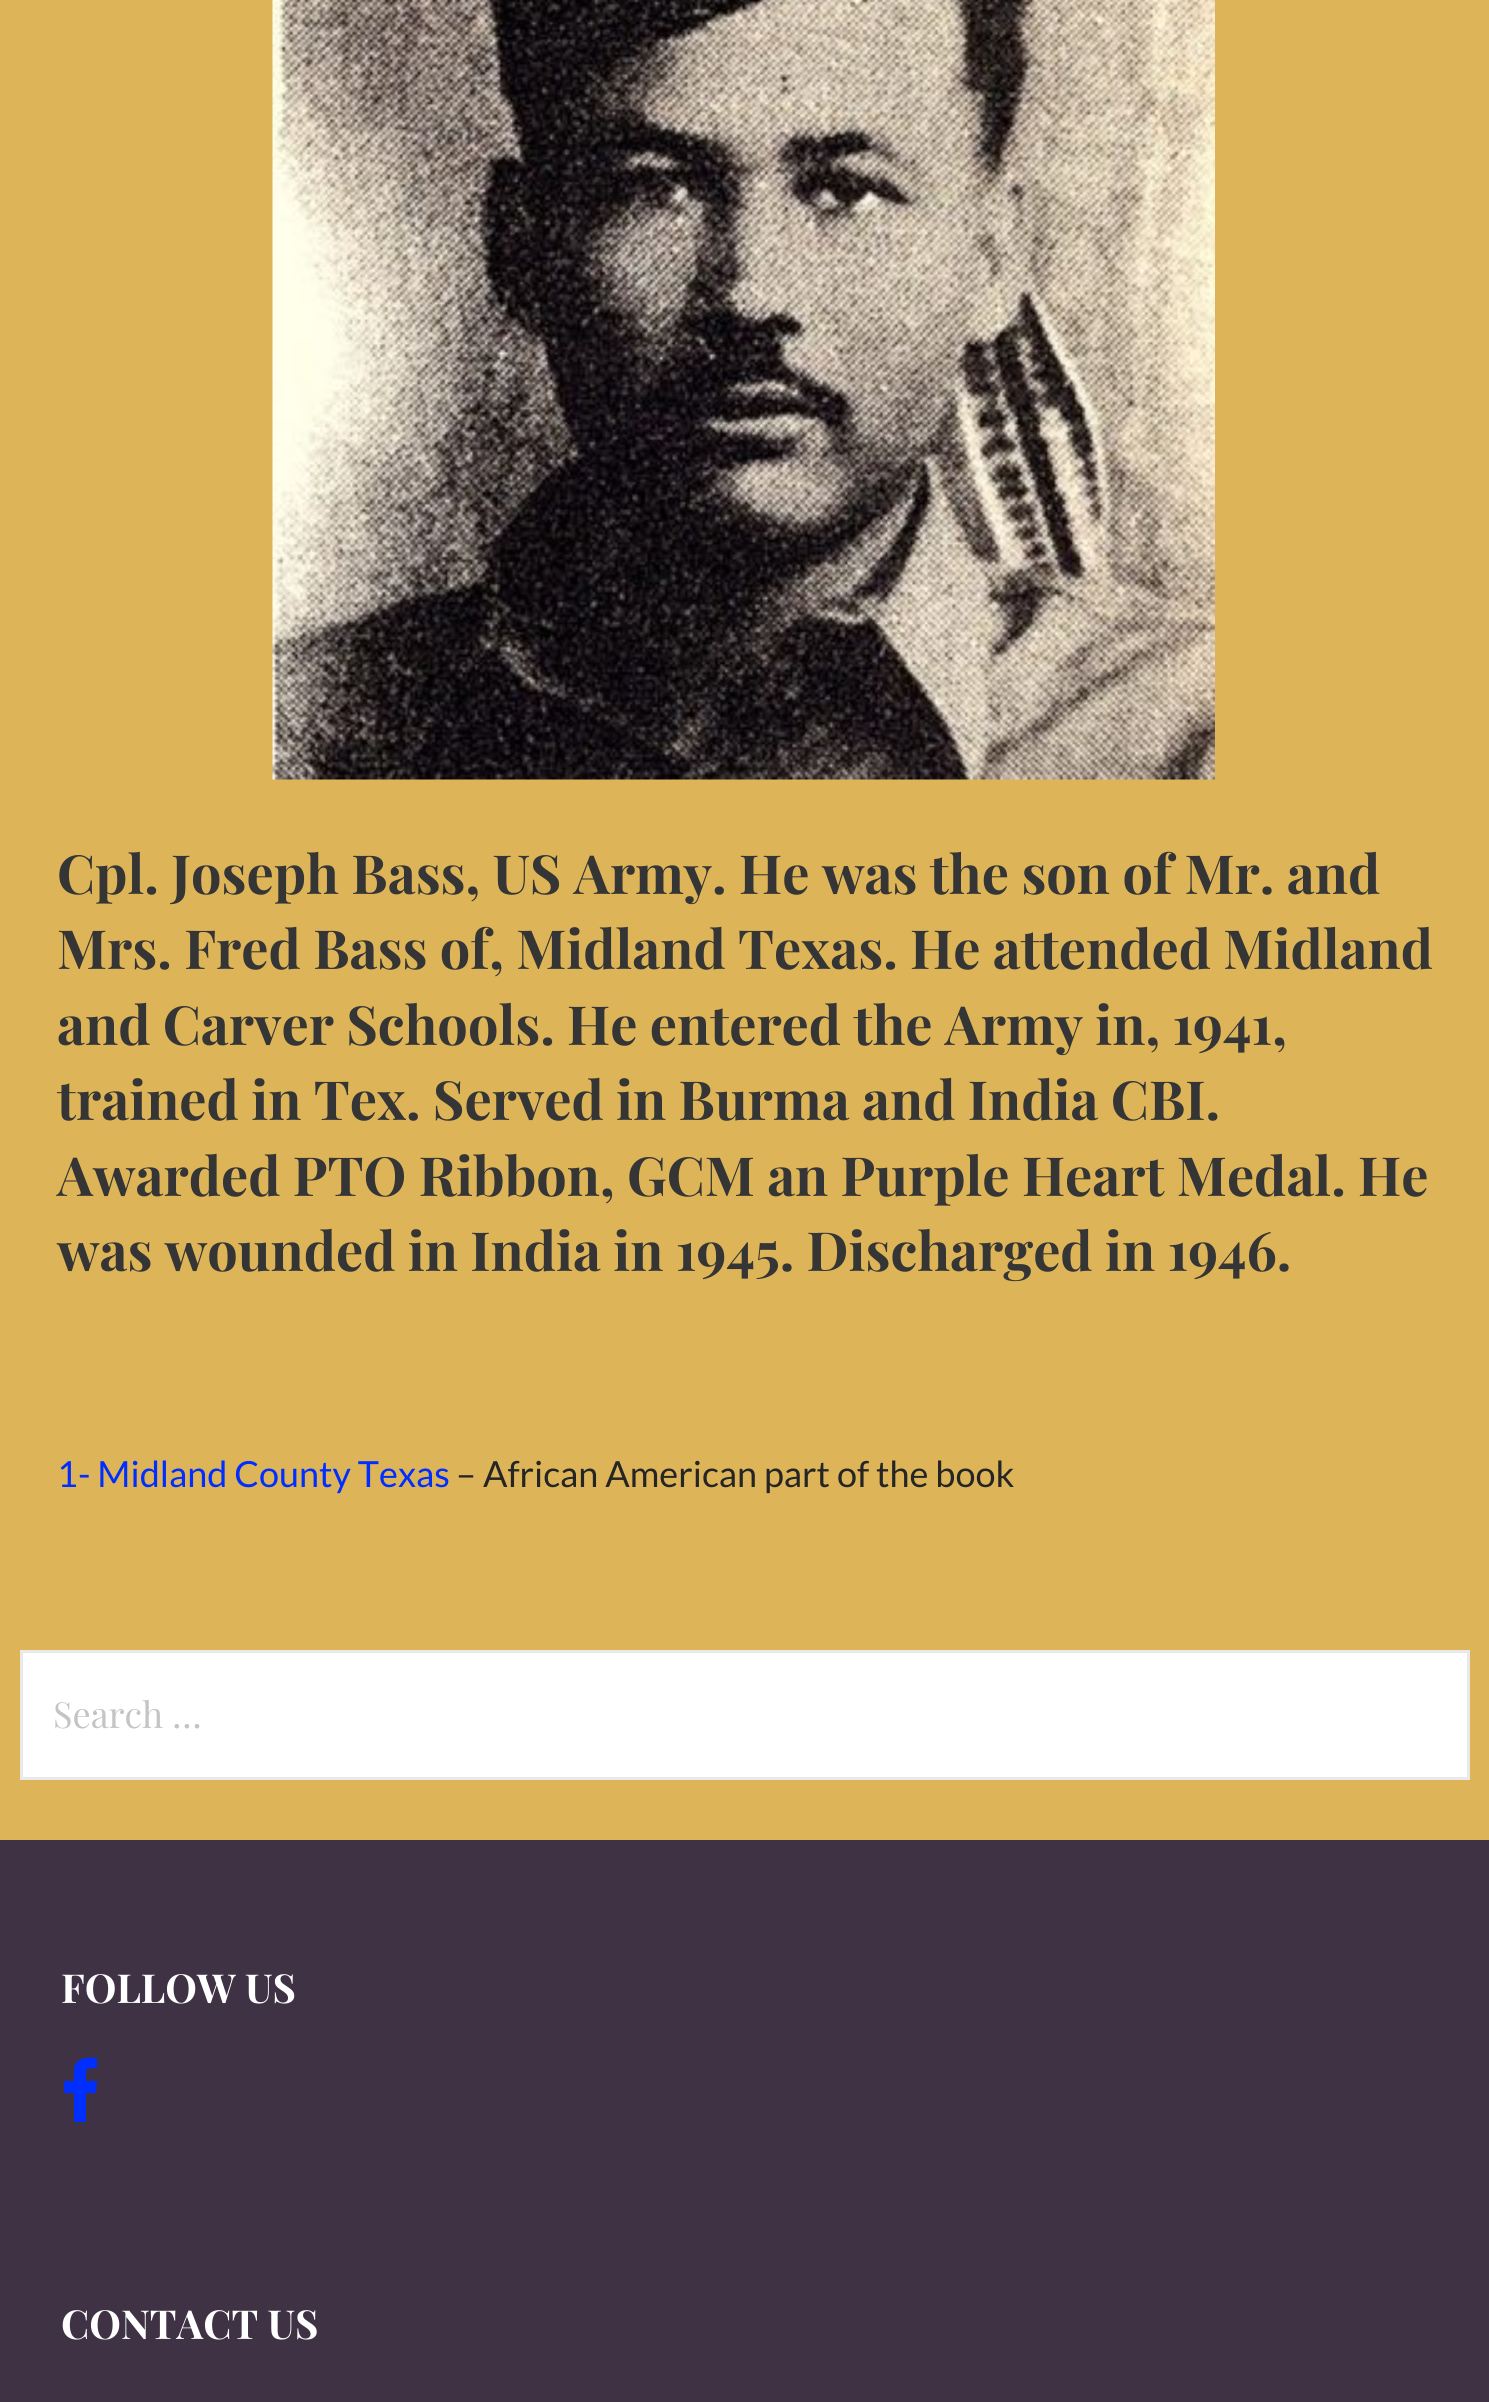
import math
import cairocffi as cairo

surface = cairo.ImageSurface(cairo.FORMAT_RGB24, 1489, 2402)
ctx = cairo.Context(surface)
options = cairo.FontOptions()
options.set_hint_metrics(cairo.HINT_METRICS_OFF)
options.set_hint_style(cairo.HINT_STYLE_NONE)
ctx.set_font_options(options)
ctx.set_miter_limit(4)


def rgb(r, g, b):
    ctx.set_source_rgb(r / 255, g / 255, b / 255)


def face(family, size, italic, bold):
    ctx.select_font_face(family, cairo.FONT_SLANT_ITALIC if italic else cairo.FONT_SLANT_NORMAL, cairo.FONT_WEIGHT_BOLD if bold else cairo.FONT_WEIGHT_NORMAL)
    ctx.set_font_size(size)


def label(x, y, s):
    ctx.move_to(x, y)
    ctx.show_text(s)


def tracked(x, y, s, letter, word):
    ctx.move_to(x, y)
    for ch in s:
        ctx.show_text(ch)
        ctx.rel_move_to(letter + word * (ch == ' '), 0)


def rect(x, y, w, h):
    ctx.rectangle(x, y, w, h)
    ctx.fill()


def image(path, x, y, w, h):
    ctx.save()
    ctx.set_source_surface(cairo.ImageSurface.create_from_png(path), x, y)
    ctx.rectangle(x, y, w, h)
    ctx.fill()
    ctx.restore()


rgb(221, 181, 88)
ctx.paint()
image('image0.png', 272, 0, 943, 780)
face('Playfair Display', 54, 0, 1)
rgb(53, 53, 53)
tracked(57, 894, 'Cpl. Joseph Bass, US Army. He was the son of Mr. and', 0, -0.1)
tracked(57, 969, 'Mrs. Fred Bass of, Midland Texas. He attended Midland', 0, -0.25)
tracked(57, 1045, 'and Carver Schools. He entered the Army in, 1941,', 0, -0.25)
tracked(57, 1120, 'trained in Tex. Served in Burma and India CBI.', 0, -0.25)
tracked(57, 1196, 'Awarded PTO Ribbon, GCM an Purple Heart Medal. He', 0, -0.25)
tracked(57, 1271, 'was wounded in India in 1945. Discharged in 1946.', 0, -0.25)
face('Lato', 36, 0, 0)
rgb(0, 46, 255)
label(57, 1487, '1- Midland County Texas')
rgb(37, 37, 37)
label(456, 1487, '– African American part of the book')
rgb(255, 255, 255)
ctx.rectangle(21.5, 1651.5, 1447, 127)
ctx.fill_preserve()
rgb(233, 233, 233)
ctx.set_line_width(3)
ctx.stroke()
face('Playfair Display', 36, 0, 0)
rgb(196, 196, 196)
label(53, 1728, 'Search …')
rgb(63, 50, 68)
rect(0, 1840, 1489, 562)
face('Playfair Display', 40, 0, 1)
rgb(255, 255, 255)
label(61, 2003, 'FOLLOW US')
rgb(0, 46, 255)
ctx.new_path()
ctx.move_to(97, 2058)
ctx.line_to(97, 2068)
ctx.curve_to(84, 2068, 86, 2069, 86, 2081)
ctx.line_to(97, 2081)
ctx.line_to(96, 2093)
ctx.line_to(86, 2093)
ctx.line_to(86, 2122)
ctx.line_to(74, 2122)
ctx.line_to(74, 2093)
ctx.line_to(64, 2093)
ctx.line_to(64, 2081)
ctx.line_to(74, 2081)
ctx.line_to(74, 2069)
ctx.curve_to(76, 2057, 88, 2057, 97, 2058)
ctx.close_path()
ctx.fill()
rgb(255, 255, 255)
label(61, 2339, 'CONTACT US')
surface.write_to_png('render.png')
